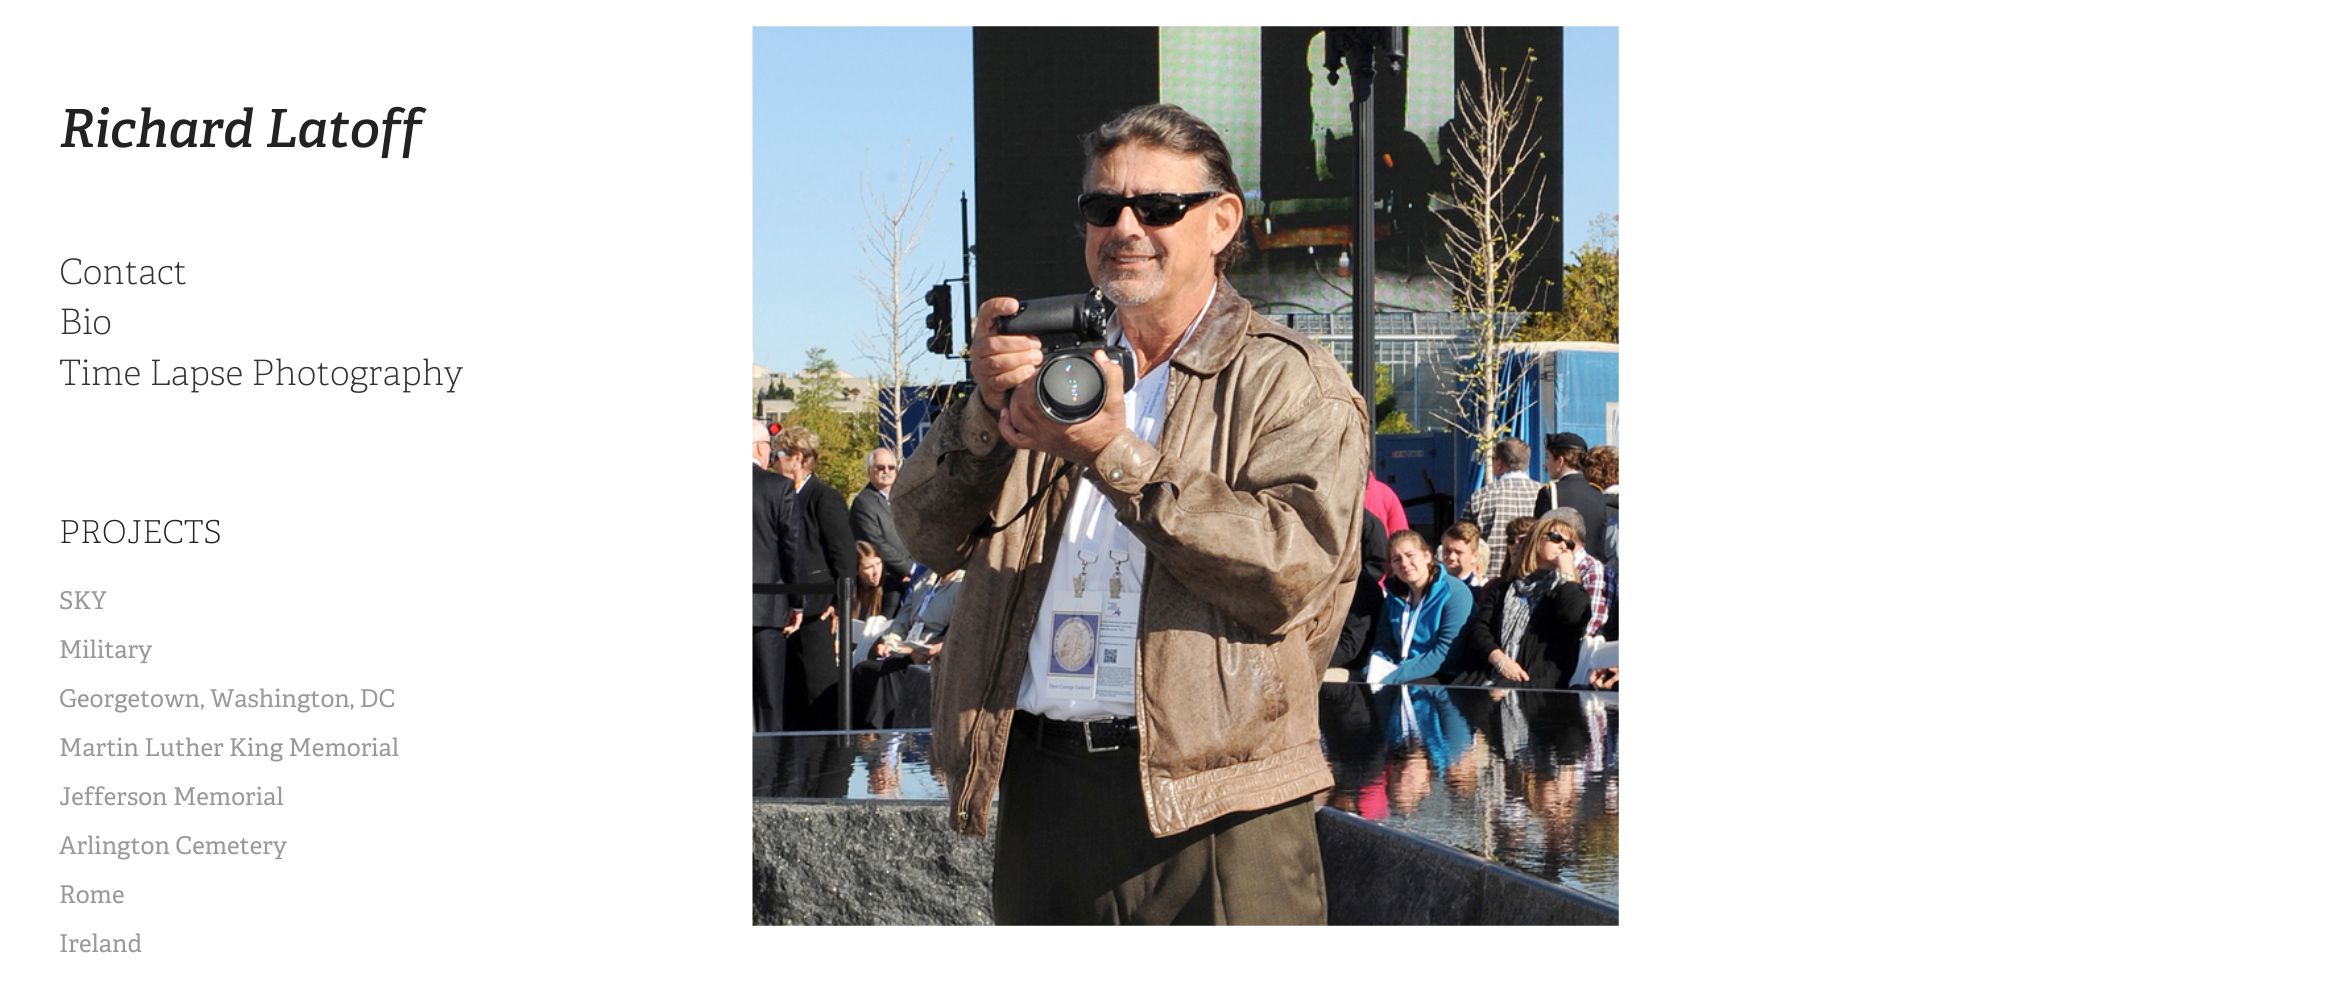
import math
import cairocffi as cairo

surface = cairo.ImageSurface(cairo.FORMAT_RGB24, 2344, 996)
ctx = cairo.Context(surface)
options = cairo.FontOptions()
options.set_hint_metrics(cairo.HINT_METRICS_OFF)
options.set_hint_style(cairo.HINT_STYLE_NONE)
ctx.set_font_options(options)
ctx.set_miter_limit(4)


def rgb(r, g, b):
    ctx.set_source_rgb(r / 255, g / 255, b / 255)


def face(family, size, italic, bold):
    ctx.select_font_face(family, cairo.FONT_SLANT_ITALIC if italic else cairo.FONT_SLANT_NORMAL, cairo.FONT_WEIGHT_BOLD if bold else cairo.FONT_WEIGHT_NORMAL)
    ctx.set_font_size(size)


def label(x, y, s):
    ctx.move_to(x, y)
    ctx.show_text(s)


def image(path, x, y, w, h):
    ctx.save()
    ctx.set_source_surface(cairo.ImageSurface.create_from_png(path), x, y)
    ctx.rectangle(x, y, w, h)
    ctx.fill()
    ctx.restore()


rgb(255, 255, 255)
ctx.paint()
face('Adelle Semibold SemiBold', 52.5, 1, 0)
rgb(34, 34, 34)
label(59, 147, 'Richard Latoff')
face('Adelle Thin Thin', 35, 0, 0)
rgb(51, 51, 51)
label(59, 284, 'Contact')
label(59, 334, 'Bio')
label(59, 385, 'Time Lapse Photography')
face('Adelle Thin Thin', 31.5, 0, 0)
rgb(34, 34, 34)
label(59, 543, 'PROJECTS')
face('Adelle', 24.5, 0, 0)
rgb(153, 153, 153)
label(59, 609, 'SKY')
label(59, 658, 'Military')
label(59, 707, 'Georgetown, Washington, DC')
label(59, 756, 'Martin Luther King Memorial')
label(59, 805, 'Jefferson Memorial')
label(59, 854, 'Arlington Cemetery')
label(59, 903, 'Rome')
label(59, 952, 'Ireland')
image('image0.png', 752, 26, 867, 900)
surface.write_to_png('render.png')
